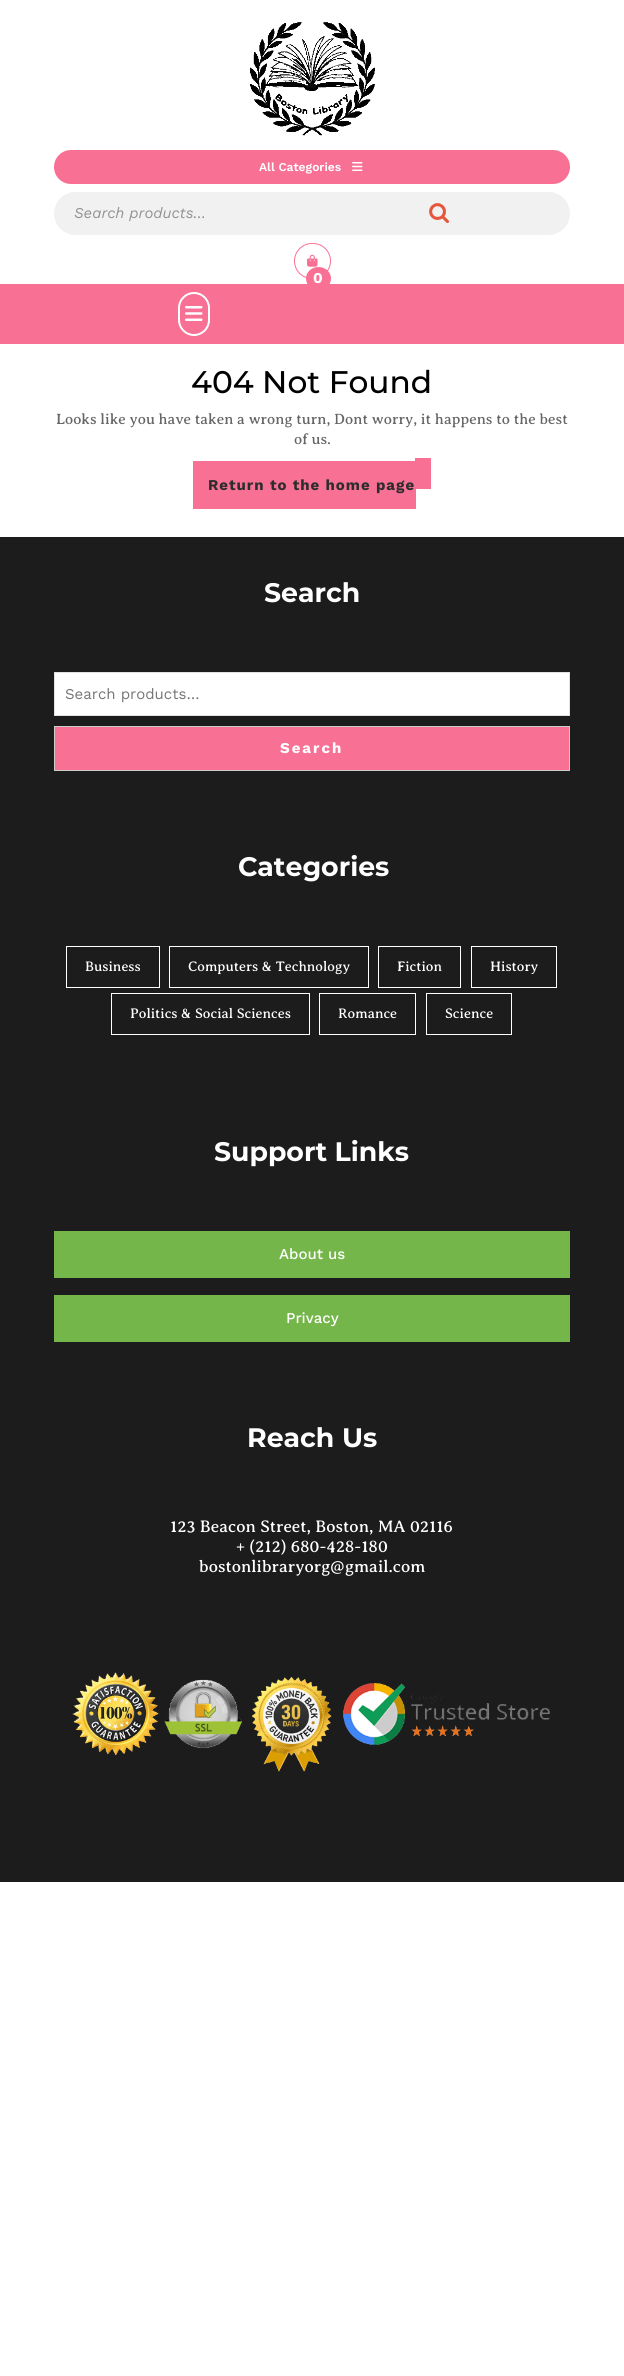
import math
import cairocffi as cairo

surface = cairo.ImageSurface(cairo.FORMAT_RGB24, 624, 2376)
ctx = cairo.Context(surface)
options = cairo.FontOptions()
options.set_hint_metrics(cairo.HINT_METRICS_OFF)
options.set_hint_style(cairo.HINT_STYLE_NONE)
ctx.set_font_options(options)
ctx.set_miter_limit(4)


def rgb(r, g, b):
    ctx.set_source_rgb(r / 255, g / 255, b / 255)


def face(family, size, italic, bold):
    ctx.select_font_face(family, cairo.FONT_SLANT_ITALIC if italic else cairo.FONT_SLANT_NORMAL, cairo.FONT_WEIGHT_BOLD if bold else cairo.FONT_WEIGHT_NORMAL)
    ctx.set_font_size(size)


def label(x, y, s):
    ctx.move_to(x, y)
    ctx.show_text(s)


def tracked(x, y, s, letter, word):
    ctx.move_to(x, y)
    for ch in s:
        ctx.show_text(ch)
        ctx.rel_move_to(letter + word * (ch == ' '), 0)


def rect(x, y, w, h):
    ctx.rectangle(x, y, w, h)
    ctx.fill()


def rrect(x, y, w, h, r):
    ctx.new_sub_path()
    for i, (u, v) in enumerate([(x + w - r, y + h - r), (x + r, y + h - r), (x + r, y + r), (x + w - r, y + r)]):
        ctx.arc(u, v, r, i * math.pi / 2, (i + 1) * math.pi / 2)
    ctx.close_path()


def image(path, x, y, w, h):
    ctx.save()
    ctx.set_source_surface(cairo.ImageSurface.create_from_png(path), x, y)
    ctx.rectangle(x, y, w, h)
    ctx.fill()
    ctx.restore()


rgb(255, 255, 255)
ctx.paint()
image('image0.png', 250, 22, 125, 114)
rgb(249, 112, 149)
rrect(54, 150, 516, 34, 17)
ctx.fill()
face('Work Sans SemiBold', 12, 0, 0)
rgb(255, 255, 255)
label(259, 171, 'All Categories')
image('image1.png', 352, 162, 11, 9)
rgb(241, 241, 241)
rrect(54, 192, 516, 43, 21.5)
ctx.fill()
face('Work Sans', 15, 1, 0)
rgb(146, 146, 146)
label(74, 218, 'Search products…')
image('image2.png', 429, 203, 20, 20)
rrect(294.5, 243.5, 36, 35, 17.5)
rgb(249, 112, 149)
ctx.set_line_width(1)
ctx.stroke()
image('image3.png', 307, 254, 11, 13)
rect(0, 284, 624, 60)
ctx.new_path()
ctx.move_to(318.5, 267)
ctx.curve_to(325.5, 267, 331, 272, 331, 278.5)
ctx.curve_to(331, 285, 325.5, 290, 318.5, 290)
ctx.curve_to(311.5, 290, 306, 285, 306, 278.5)
ctx.curve_to(306, 272, 311.5, 267, 318.5, 267)
ctx.close_path()
ctx.fill()
face('Work Sans', 15, 0, 1)
rgb(255, 255, 255)
label(313, 283, '0')
rrect(179, 293, 30, 42, 15)
ctx.set_line_width(2)
ctx.stroke()
image('image4.png', 185, 306, 18, 15)
face('Montserrat Medium', 31.25, 0, 0)
rgb(0, 0, 0)
label(191, 393, '404 Not Found')
face('Averia Serif Libre', 15, 0, 0)
rgb(102, 102, 102)
label(56, 424, 'Looks like you have taken a wrong turn, Dont worry, it happens to the best')
label(294, 444, 'of us.')
rgb(249, 112, 149)
rect(193, 461, 223, 48)
face('Work Sans', 15, 0, 1)
rgb(45, 45, 45)
tracked(208, 490, 'Return to the home page', 1, 0)
rgb(249, 112, 149)
rect(415, 458, 16, 31)
rgb(28, 28, 28)
rect(0, 537, 624, 1345)
face('Montserrat', 26.75, 0, 1)
rgb(255, 255, 255)
label(264, 602, 'Search')
ctx.rectangle(54.5, 672.5, 515, 43)
ctx.fill_preserve()
rgb(225, 225, 225)
ctx.set_line_width(1)
ctx.stroke()
face('Work Sans', 15, 0, 0)
rgb(117, 117, 117)
label(65, 699, 'Search products…')
rgb(249, 112, 149)
ctx.rectangle(54.5, 726.5, 515, 44)
ctx.fill_preserve()
rgb(204, 204, 204)
ctx.stroke()
face('Work Sans', 15, 0, 1)
rgb(255, 255, 255)
tracked(280, 753, 'Search', 2, 0)
face('Montserrat', 26.75, 0, 1)
label(238, 876, 'Categories')
ctx.rectangle(66.5, 946.5, 93, 41)
ctx.stroke()
face('Averia Serif Libre', 14, 0, 0)
label(85, 971, 'Business')
ctx.rectangle(169.5, 946.5, 199, 41)
ctx.stroke()
label(188, 971, 'Computers & Technology')
ctx.rectangle(378.5, 946.5, 82, 41)
ctx.stroke()
label(397, 971, 'Fiction')
ctx.rectangle(471.5, 946.5, 85, 41)
ctx.stroke()
label(490, 971, 'History')
ctx.rectangle(111.5, 993.5, 198, 41)
ctx.stroke()
label(130, 1018, 'Politics & Social Sciences')
ctx.rectangle(319.5, 993.5, 96, 41)
ctx.stroke()
label(338, 1018, 'Romance')
ctx.rectangle(426.5, 993.5, 85, 41)
ctx.stroke()
label(445, 1018, 'Science')
face('Montserrat', 26.75, 0, 1)
label(214, 1161, 'Support Links')
rgb(117, 182, 74)
rect(54, 1231, 516, 47)
face('Work Sans Medium', 15, 0, 0)
rgb(255, 255, 255)
label(279, 1259, 'About us')
rgb(117, 182, 74)
rect(54, 1295, 516, 47)
rgb(255, 255, 255)
label(286, 1323, 'Privacy')
face('Montserrat', 26.75, 0, 1)
label(247, 1447, 'Reach Us')
face('Averia Serif Libre', 17, 0, 0)
label(170, 1532, '123 Beacon Street, Boston, MA 02116')
label(236, 1552, '+ (212) 680-428-180')
label(199, 1572, 'bostonlibraryorg@gmail.com')
image('image5.png', 72, 1672, 478, 100)
surface.write_to_png('render.png')
